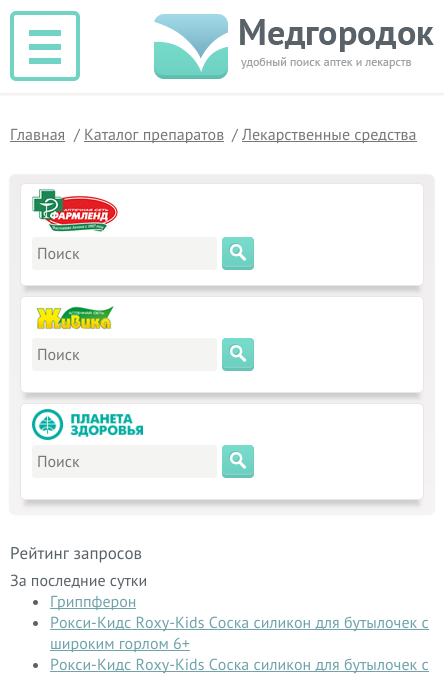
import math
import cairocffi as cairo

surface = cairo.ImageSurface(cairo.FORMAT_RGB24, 444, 674)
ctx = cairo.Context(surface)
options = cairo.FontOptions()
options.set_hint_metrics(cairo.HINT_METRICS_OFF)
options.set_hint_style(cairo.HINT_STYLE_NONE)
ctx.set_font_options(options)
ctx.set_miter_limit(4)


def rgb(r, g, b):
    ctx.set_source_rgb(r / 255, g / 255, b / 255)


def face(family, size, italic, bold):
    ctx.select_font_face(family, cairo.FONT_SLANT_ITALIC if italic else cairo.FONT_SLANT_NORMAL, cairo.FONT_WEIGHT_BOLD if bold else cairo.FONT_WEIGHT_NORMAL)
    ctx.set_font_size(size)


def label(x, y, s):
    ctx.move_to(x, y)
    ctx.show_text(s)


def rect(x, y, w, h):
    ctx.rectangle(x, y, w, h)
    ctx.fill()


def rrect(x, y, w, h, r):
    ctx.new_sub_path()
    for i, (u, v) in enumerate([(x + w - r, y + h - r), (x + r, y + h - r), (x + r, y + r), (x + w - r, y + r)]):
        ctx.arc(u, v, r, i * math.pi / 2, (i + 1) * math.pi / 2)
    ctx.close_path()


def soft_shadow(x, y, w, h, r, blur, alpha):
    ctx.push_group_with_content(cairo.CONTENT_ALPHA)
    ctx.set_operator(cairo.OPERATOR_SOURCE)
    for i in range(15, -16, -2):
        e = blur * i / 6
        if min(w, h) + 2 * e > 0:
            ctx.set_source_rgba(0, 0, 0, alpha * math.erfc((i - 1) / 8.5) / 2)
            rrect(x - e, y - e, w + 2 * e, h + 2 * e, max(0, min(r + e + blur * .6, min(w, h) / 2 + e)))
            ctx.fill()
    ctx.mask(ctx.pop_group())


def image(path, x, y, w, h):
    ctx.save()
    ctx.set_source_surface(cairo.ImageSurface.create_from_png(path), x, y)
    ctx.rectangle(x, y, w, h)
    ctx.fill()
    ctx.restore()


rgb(255, 255, 255)
ctx.paint()
ctx.save()
ctx.rectangle(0, 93, 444, 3)
ctx.clip()
rgb(0, 0, 0)
soft_shadow(0, 0, 444, 93, 0, 2.5, 0.15)
ctx.restore()
rrect(12, 13, 66, 66, 4)
rgb(112, 211, 196)
ctx.set_line_width(4)
ctx.stroke()
rect(29, 30, 32, 6)
rect(29, 44, 32, 6)
rect(29, 58, 32, 6)
image('image0.png', 154, 14, 280, 65)
face('PT Sans', 16, 0, 0)
rgb(119, 119, 119)
label(10, 140, 'Главная')
rect(10, 141, 55, 1)
label(74, 140, '/')
rect(84, 141, 140, 1)
label(84, 140, 'Каталог препаратов')
label(232, 140, '/')
rect(242, 141, 175, 1)
label(242, 140, 'Лекарственные средства')
rgb(221, 221, 221)
soft_shadow(10, 175, 424, 339, 5, 1, 1)
gradient = cairo.LinearGradient(222, 175, 222, 514)
gradient.add_color_stop_rgba(0, 0.937, 0.929, 0.929, 1)
gradient.add_color_stop_rgba(1, 0.961, 0.953, 0.953, 1)
ctx.set_source(gradient)
rrect(10, 175, 424, 339, 5)
ctx.fill()
rgb(204, 204, 204)
soft_shadow(25, 198, 394, 93, 0, 2.5, 1)
rgb(255, 255, 255)
rrect(20.5, 183.5, 403, 102, 4.5)
ctx.fill_preserve()
rgb(231, 231, 231)
ctx.set_line_width(1)
ctx.stroke()
image('image1.png', 32, 189, 86, 43)
rgb(244, 244, 242)
rrect(32, 237, 185, 33, 3)
ctx.fill()
rgb(119, 119, 119)
label(37, 259, 'Поиск')
image('image2.png', 222, 237, 32, 33)
rgb(204, 204, 204)
soft_shadow(25, 311, 394, 87, 0, 2.5, 1)
rgb(255, 255, 255)
rrect(20.5, 296.5, 403, 96, 4.5)
ctx.fill_preserve()
rgb(231, 231, 231)
ctx.stroke()
image('image3.png', 36, 306, 78, 24)
rgb(244, 244, 242)
rrect(32, 338, 185, 33, 3)
ctx.fill()
rgb(119, 119, 119)
label(37, 360, 'Поиск')
image('image2.png', 222, 338, 32, 33)
rgb(204, 204, 204)
soft_shadow(25, 418, 394, 87, 0, 2.5, 1)
rgb(255, 255, 255)
rrect(20.5, 403.5, 403, 96, 4.5)
ctx.fill_preserve()
rgb(231, 231, 231)
ctx.stroke()
image('image4.png', 32, 409, 111, 31)
rgb(244, 244, 242)
rrect(32, 445, 185, 33, 3)
ctx.fill()
rgb(119, 119, 119)
label(37, 467, 'Поиск')
image('image2.png', 222, 445, 32, 33)
face('PT Sans', 17, 0, 0)
rgb(88, 98, 104)
label(10, 559, 'Рейтинг запросов')
face('PT Sans', 16, 0, 0)
label(10, 586, 'За последние сутки')
ctx.new_path()
ctx.arc(35.5, 602.5, 2.5, 0, 2 * math.pi)
ctx.fill()
rgb(113, 163, 170)
rect(50, 608, 86, 1)
label(50, 607, 'Гриппферон')
rgb(88, 98, 104)
ctx.new_path()
ctx.arc(35.5, 623.5, 2.5, 0, 2 * math.pi)
ctx.fill()
rgb(113, 163, 170)
rect(50, 629, 379, 1)
label(50, 628, 'Рокси-Кидс Roxy-Kids Соска силикон для бутылочек с')
rect(50, 650, 140, 1)
label(50, 649, 'широким горлом 6+')
rgb(88, 98, 104)
ctx.new_path()
ctx.arc(35.5, 665.5, 2.5, 0, 2 * math.pi)
ctx.fill()
rgb(113, 163, 170)
rect(50, 671, 379, 1)
label(50, 670, 'Рокси-Кидс Roxy-Kids Соска силикон для бутылочек с')
surface.write_to_png('render.png')
